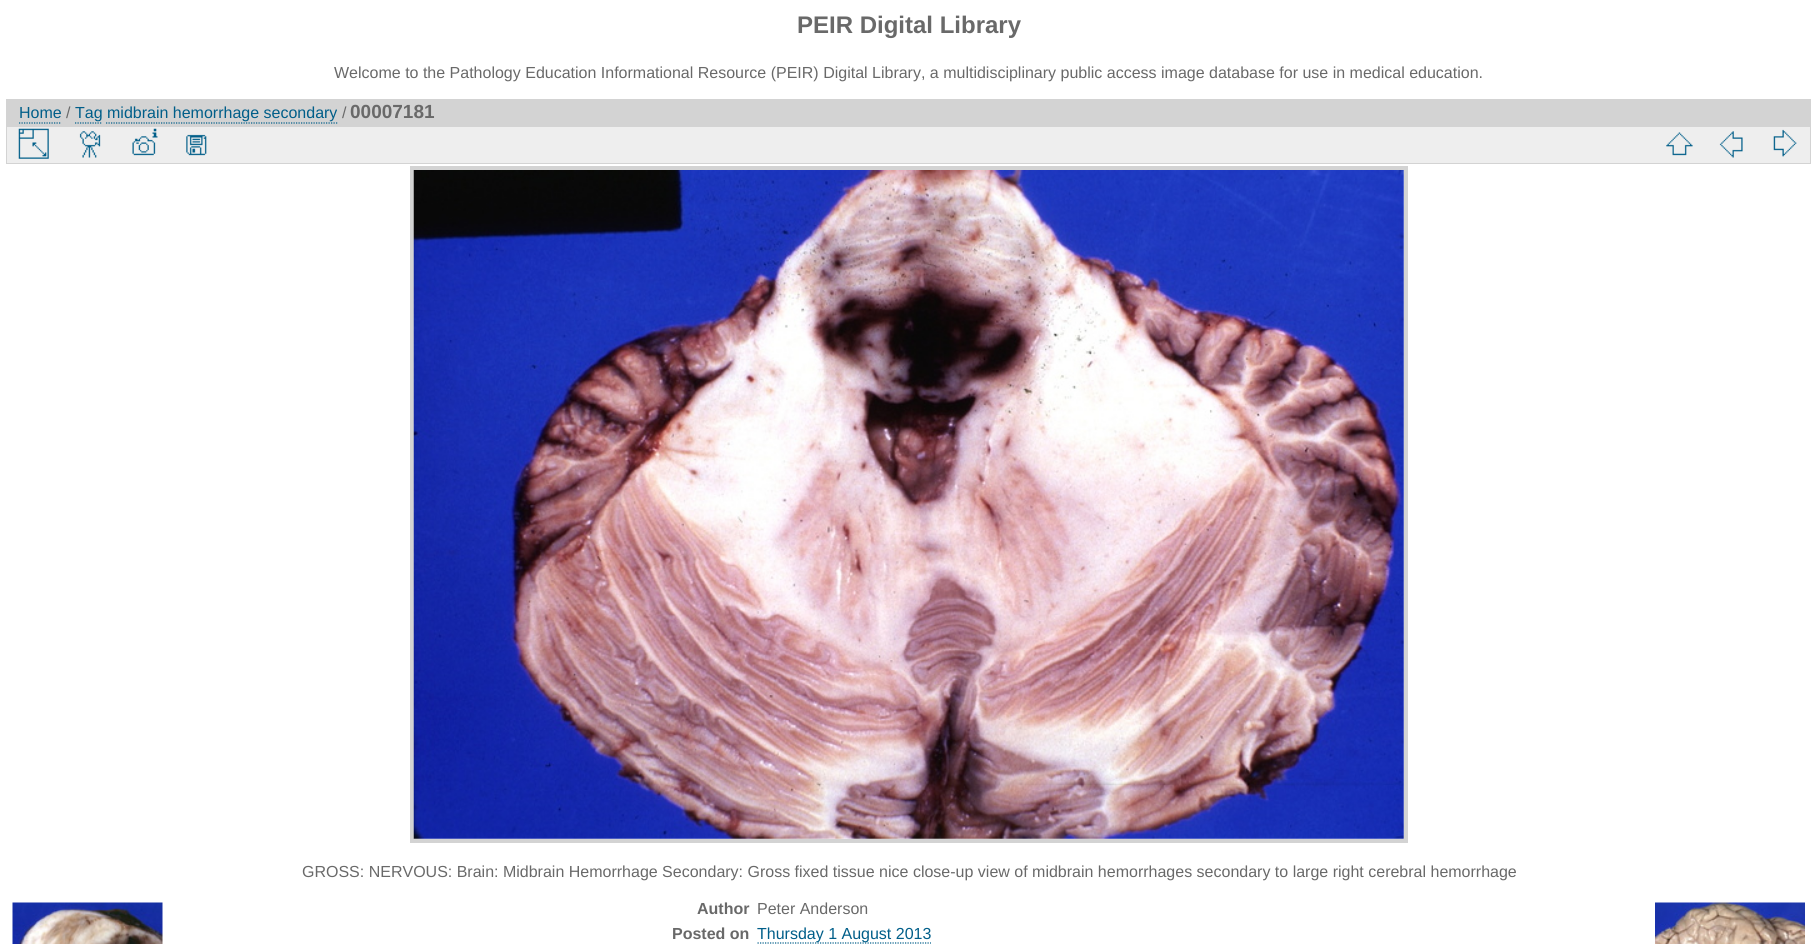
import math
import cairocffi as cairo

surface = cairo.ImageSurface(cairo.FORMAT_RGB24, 1817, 944)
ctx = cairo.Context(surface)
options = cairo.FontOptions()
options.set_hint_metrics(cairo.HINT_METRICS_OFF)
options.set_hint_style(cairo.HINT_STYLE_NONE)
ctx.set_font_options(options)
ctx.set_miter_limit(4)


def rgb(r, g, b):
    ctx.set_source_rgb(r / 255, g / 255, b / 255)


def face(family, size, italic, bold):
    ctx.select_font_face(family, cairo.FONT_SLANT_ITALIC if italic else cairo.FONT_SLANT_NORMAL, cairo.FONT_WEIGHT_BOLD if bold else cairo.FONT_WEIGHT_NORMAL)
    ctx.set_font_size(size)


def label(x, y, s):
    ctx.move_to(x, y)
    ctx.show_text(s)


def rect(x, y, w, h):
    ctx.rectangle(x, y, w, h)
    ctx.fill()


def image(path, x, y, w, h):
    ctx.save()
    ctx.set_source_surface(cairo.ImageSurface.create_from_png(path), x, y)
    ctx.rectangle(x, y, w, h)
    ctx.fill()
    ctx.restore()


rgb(255, 255, 255)
ctx.paint()
face('Liberation Sans', 24, 0, 1)
rgb(105, 105, 105)
label(797, 33, 'PEIR Digital Library')
face('Liberation Sans', 16, 0, 0)
label(334, 78, 'Welcome to the Pathology Education Informational Resource (PEIR) Digital Library, a multidisciplinary public access image database for use in medical education.')
rgb(211, 211, 211)
rect(6, 99, 1805, 27)
rgb(0, 94, 137)
label(19, 118, 'Home')
ctx.new_path()
ctx.move_to(19, 123)
ctx.line_to(61, 123)
ctx.set_line_width(1.2)
ctx.set_dash([1.25, 1.25])
ctx.stroke()
rgb(105, 105, 105)
label(66, 118, '/')
rgb(0, 94, 137)
label(75, 118, 'Tag midbrain hemorrhage secondary')
ctx.new_path()
ctx.move_to(75, 123)
ctx.line_to(102.5, 123)
ctx.stroke()
rgb(105, 105, 105)
label(342, 118, '/')
face('Liberation Sans', 19, 0, 1)
label(350, 118, '00007181')
ctx.new_path()
ctx.move_to(106, 123)
ctx.line_to(337.5, 123)
rgb(0, 94, 137)
ctx.stroke()
rgb(238, 238, 238)
ctx.rectangle(6.5, 126.5, 1804, 37)
ctx.fill_preserve()
rgb(211, 211, 211)
ctx.set_line_width(1)
ctx.set_dash([])
ctx.stroke()
image('image0.png', 18, 128, 31, 31)
image('image1.png', 79, 131, 22, 27)
image('image2.png', 132, 128, 26, 28)
image('image3.png', 186, 134, 21, 22)
image('image4.png', 1666, 132, 27, 24)
image('image5.png', 1719, 131, 24, 27)
image('image6.png', 1773, 129, 24, 28)
ctx.rectangle(412, 168, 994, 673)
ctx.set_line_width(4)
ctx.stroke()
image('image7.png', 413, 170, 991, 669)
face('Liberation Sans', 16, 0, 0)
rgb(105, 105, 105)
label(302, 877, 'GROSS: NERVOUS: Brain: Midbrain Hemorrhage Secondary: Gross fixed tissue nice close-up view of midbrain hemorrhages secondary to large right cerebral hemorrhage')
image('image8.png', 12, 902, 151, 42)
image('image9.png', 1655, 902, 150, 42)
face('Liberation Sans', 16, 0, 1)
label(697, 914, 'Author')
face('Liberation Sans', 16, 0, 0)
label(757, 914, 'Peter Anderson')
face('Liberation Sans', 16, 0, 1)
label(672, 939, 'Posted on')
ctx.new_path()
ctx.move_to(757.5, 943)
ctx.line_to(931, 943)
rgb(0, 94, 137)
ctx.set_line_width(1.2)
ctx.set_dash([1.25, 1.25])
ctx.stroke()
face('Liberation Sans', 16, 0, 0)
label(757, 939, 'Thursday 1 August 2013')
surface.write_to_png('render.png')
